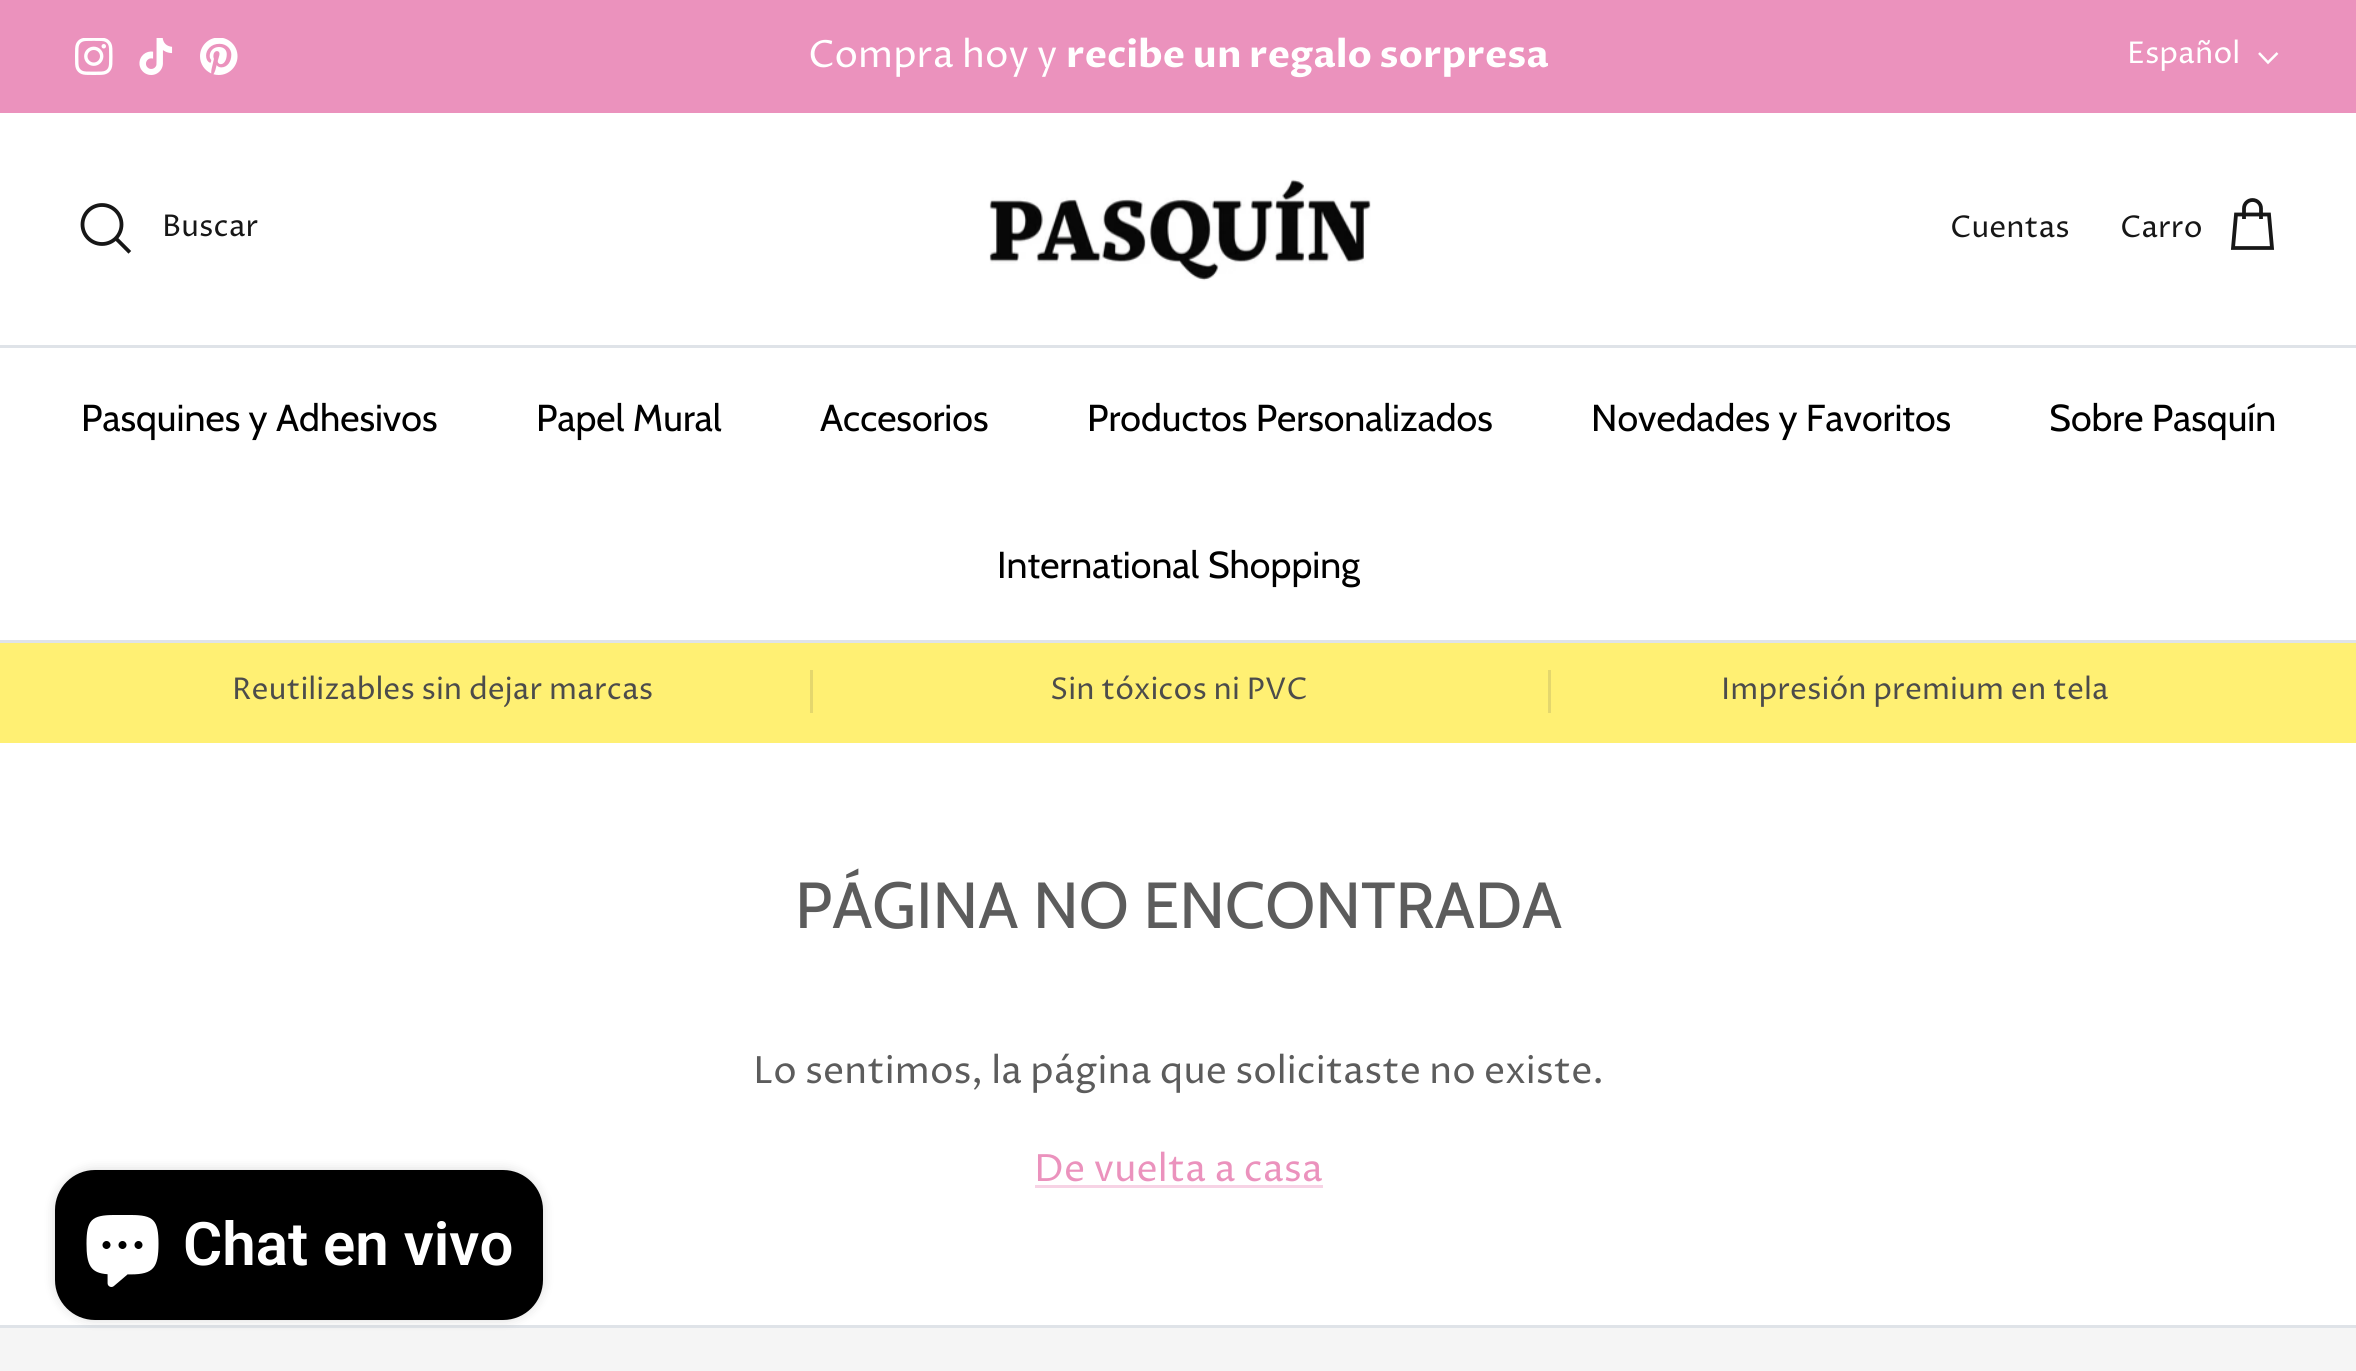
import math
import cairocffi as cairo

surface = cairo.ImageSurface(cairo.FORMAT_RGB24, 2356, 1371)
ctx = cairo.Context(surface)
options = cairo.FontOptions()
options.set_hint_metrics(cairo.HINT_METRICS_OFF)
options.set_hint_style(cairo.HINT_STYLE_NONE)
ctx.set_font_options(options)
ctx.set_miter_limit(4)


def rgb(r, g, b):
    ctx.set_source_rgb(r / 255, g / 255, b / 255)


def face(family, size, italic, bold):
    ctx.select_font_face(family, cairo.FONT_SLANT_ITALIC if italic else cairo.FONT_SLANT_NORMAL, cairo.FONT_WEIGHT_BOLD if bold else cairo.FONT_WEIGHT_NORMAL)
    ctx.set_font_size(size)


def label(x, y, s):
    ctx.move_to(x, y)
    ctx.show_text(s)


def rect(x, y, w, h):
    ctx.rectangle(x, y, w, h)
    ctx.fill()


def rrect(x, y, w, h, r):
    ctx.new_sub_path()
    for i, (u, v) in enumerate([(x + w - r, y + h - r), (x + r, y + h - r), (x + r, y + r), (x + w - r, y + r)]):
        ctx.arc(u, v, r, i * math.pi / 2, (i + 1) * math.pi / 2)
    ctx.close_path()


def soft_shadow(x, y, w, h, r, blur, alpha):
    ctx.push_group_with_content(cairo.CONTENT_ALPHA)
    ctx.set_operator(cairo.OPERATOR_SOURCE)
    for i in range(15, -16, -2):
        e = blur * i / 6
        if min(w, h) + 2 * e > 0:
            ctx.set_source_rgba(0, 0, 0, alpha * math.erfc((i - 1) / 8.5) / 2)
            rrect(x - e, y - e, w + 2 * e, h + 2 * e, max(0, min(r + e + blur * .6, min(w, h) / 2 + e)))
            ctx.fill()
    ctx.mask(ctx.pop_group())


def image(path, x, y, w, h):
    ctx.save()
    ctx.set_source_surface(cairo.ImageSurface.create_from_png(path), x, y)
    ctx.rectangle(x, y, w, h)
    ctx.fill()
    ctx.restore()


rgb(255, 255, 255)
ctx.paint()
rgb(235, 146, 189)
rect(0, 0, 2356, 113)
image('image0.png', 75, 38, 38, 37)
image('image1.png', 139, 38, 34, 37)
image('image2.png', 200, 38, 38, 37)
face('Proza Libre', 37.5, 0, 0)
rgb(255, 255, 255)
label(808, 67, 'Compra hoy y')
face('Proza Libre', 37.5, 0, 1)
label(1066, 67, 'recibe un regalo sorpresa')
face('Proza Libre', 30, 0, 0)
label(2127, 63, 'Español')
ctx.new_path()
ctx.move_to(2277.5, 53)
ctx.line_to(2268, 62.5)
ctx.line_to(2259, 53)
ctx.set_line_width(2.5)
ctx.stroke()
rgb(223, 227, 232)
rect(0, 345, 2356, 3)
ctx.arc(102, 224.5, 19.5, 0, 2 * math.pi)
rgb(23, 23, 23)
ctx.set_line_width(3.8)
ctx.stroke()
label(162, 236, 'Buscar')
ctx.new_path()
ctx.move_to(117.5, 240)
ctx.line_to(128.5, 251)
ctx.set_line_cap(cairo.LINE_CAP_SQUARE)
ctx.stroke()
image('image3.png', 989, 179, 382, 102)
label(1950, 237, 'Cuentas')
label(2120, 237, 'Carro')
ctx.new_path()
ctx.move_to(2261, 219)
ctx.line_to(2261, 208.5)
ctx.curve_to(2261, 203.5, 2257, 200, 2252.5, 200)
ctx.curve_to(2248, 200, 2244, 203.5, 2244, 208.5)
ctx.line_to(2244, 219)
ctx.move_to(2236, 214.5)
ctx.line_to(2269, 214.5)
ctx.line_to(2272, 248)
ctx.line_to(2233, 248)
ctx.close_path()
ctx.set_line_cap(cairo.LINE_CAP_BUTT)
ctx.stroke()
rgb(223, 227, 232)
rect(0, 640, 2356, 3)
face('Cabin', 37.5, 0, 0)
rgb(0, 0, 0)
label(81, 431, 'Pasquines y Adhesivos')
label(536, 431, 'Papel Mural')
label(820, 431, 'Accesorios')
label(1087, 431, 'Productos Personalizados')
label(1591, 431, 'Novedades y Favoritos')
label(2049, 431, 'Sobre Pasquín')
label(997, 578, 'International Shopping')
rgb(255, 240, 115)
rect(0, 643, 2356, 100)
face('Proza Libre', 30, 0, 0)
rgb(76, 76, 75)
label(232, 699, 'Reutilizables sin dejar marcas')
rgb(228, 215, 109)
rect(810, 670, 3, 43)
rgb(76, 76, 75)
label(1050, 699, 'Sin tóxicos ni PVC')
rgb(228, 215, 109)
rect(1548, 670, 3, 43)
rgb(76, 76, 75)
label(1721, 699, 'Impresión premium en tela')
face('Cabin', 65, 0, 0)
rgb(92, 92, 92)
label(795, 928, 'PÁGINA NO ENCONTRADA')
face('Proza Libre', 37.5, 0, 0)
label(753, 1083, 'Lo sentimos, la página que solicitaste no existe.')
rgb(235, 146, 189)
label(1034, 1181, 'De vuelta a casa')
rgb(247, 211, 229)
rect(1035, 1185, 288, 3)
rgb(245, 245, 245)
rect(0, 1328, 2356, 43)
rgb(223, 227, 232)
rect(0, 1325, 2356, 3)
rgb(0, 0, 0)
soft_shadow(55, 1170, 488, 150, 40, 6, 0.15)
rgb(0, 0, 0)
rrect(55, 1170, 488, 150, 40)
ctx.fill()
image('image4.png', 86, 1215, 73, 72)
face('Roboto SemiBold', 60, 0, 0)
rgb(255, 255, 255)
label(183, 1265, 'Chat en vivo')
surface.write_to_png('render.png')
